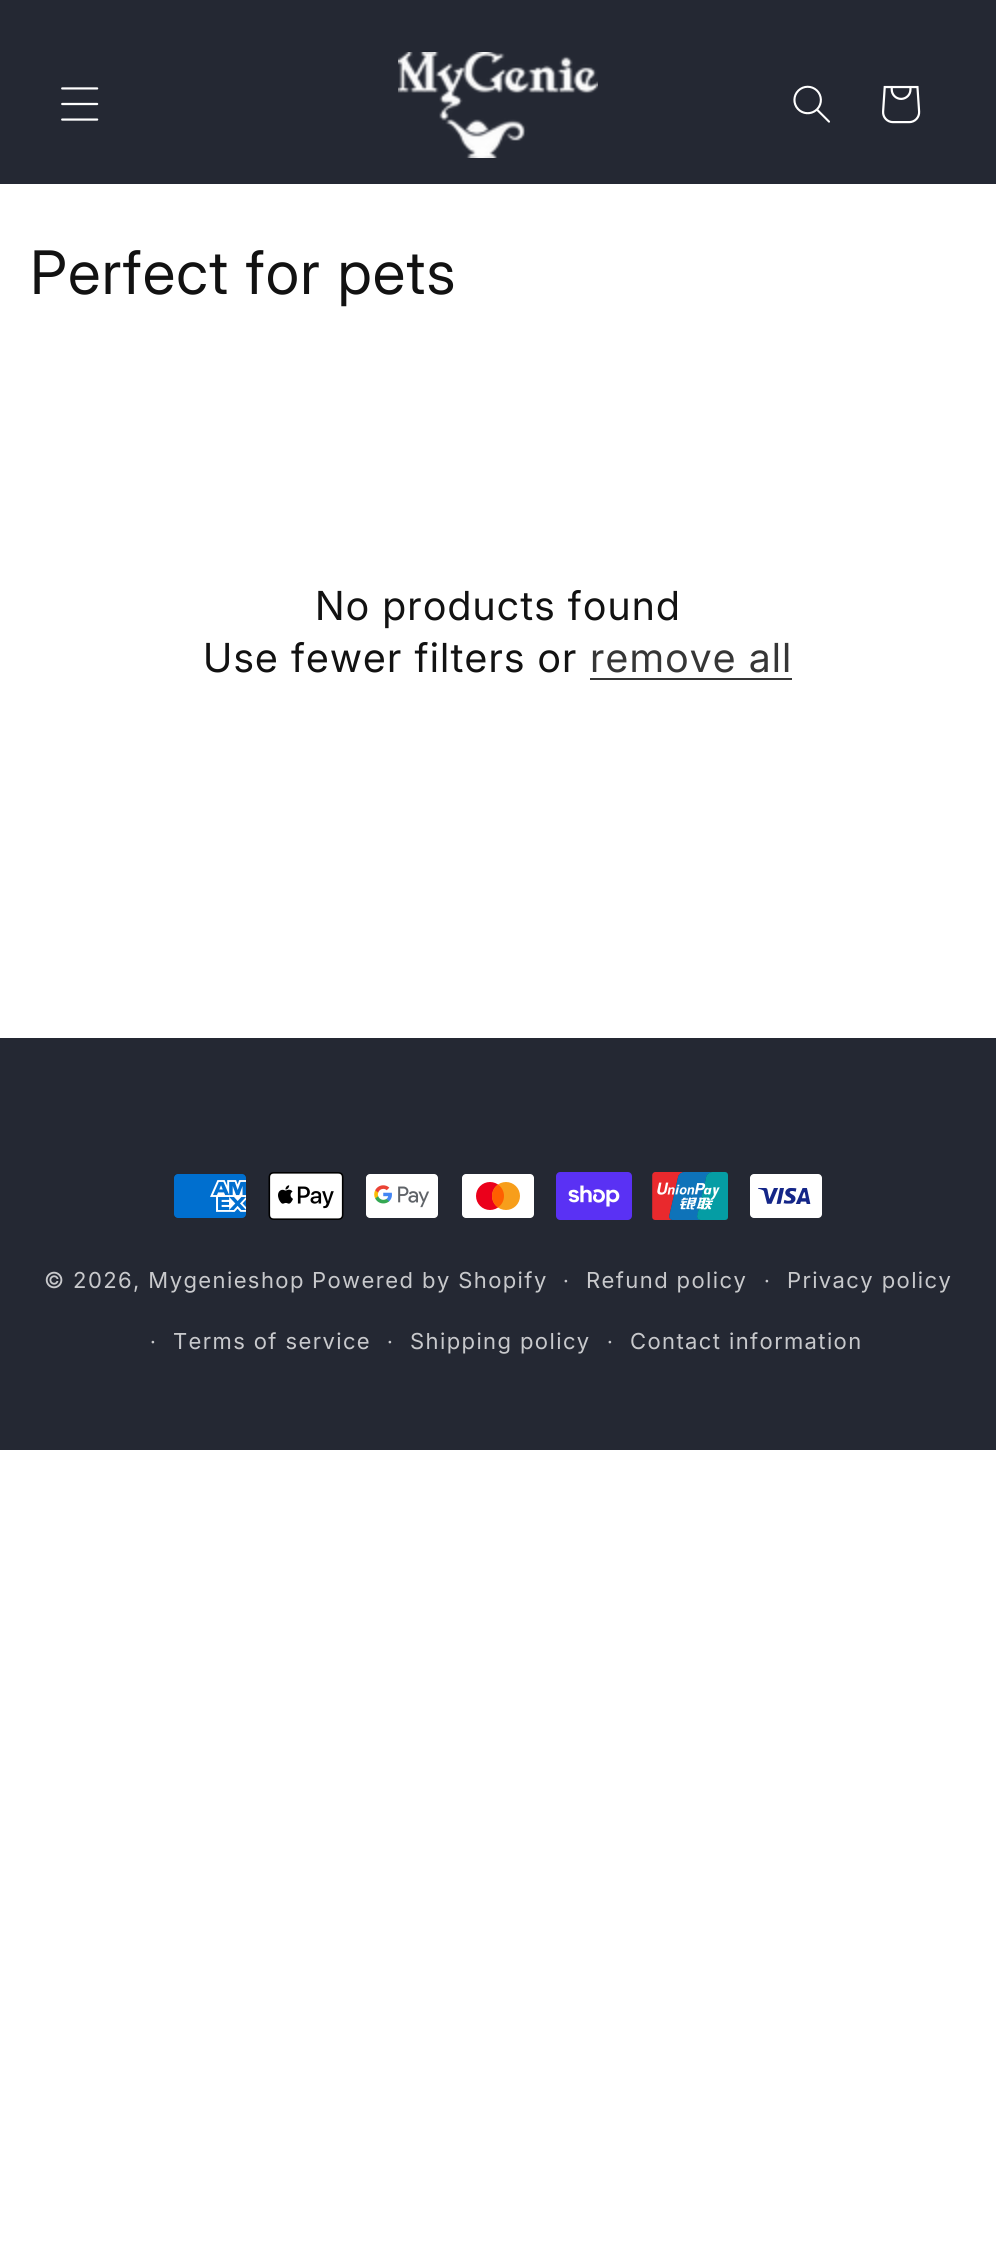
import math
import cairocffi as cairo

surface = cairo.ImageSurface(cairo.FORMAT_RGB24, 996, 2259)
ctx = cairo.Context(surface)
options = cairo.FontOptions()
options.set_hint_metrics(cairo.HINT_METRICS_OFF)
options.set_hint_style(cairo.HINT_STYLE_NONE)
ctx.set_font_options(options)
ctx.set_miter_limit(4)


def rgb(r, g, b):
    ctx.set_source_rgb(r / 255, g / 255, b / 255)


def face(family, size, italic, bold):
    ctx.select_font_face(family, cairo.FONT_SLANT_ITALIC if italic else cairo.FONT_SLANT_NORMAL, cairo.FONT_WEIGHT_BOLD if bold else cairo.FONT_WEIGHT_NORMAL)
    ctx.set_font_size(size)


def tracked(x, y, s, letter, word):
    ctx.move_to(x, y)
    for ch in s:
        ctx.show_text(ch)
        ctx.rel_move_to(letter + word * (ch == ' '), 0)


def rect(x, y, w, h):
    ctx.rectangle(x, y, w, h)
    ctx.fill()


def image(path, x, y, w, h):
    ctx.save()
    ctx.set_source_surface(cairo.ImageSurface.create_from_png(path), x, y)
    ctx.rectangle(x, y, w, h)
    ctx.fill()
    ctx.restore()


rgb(255, 255, 255)
ctx.paint()
rgb(36, 40, 51)
rect(0, 0, 996, 184)
image('image0.png', 61, 87, 38, 34)
image('image1.png', 398, 52, 200, 106)
image('image2.png', 793, 85, 37, 38)
image('image3.png', 882, 85, 39, 39)
face('Inter', 60, 0, 0)
rgb(18, 18, 18)
tracked(30, 294, 'Perfect for pets', 1.2, 0)
face('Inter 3', 40, 0, 0)
tracked(315, 620, 'No products found', 1.2, 0)
tracked(203, 672, 'Use fewer filters or', 1.2, 0)
rgb(54, 54, 54)
tracked(590, 672, 'remove all', 1.2, 0)
rect(590, 678, 202, 2)
rgb(36, 40, 51)
rect(0, 1038, 996, 412)
image('image4.png', 174, 1174, 72, 44)
image('image5.png', 268, 1172, 76, 48)
image('image6.png', 366, 1174, 72, 44)
image('image7.png', 462, 1174, 72, 44)
image('image8.png', 556, 1172, 76, 48)
image('image9.png', 652, 1172, 76, 48)
image('image10.png', 750, 1174, 72, 44)
face('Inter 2', 22, 0, 0)
rgb(200, 201, 204)
tracked(44, 1288, '© 2026, Mygenieshop', 1.4, 0)
face('Inter 2', 20, 0, 0)
tracked(563, 1288, '·', 1.4, 0)
face('Inter 2', 22, 0, 0)
tracked(586, 1288, 'Refund policy', 1.4, 0)
face('Inter 2', 20, 0, 0)
tracked(764, 1288, '·', 1.4, 0)
face('Inter 2', 22, 0, 0)
tracked(787, 1288, 'Privacy policy', 1.4, 0)
face('Inter 2', 20, 0, 0)
tracked(150, 1349, '·', 1.4, 0)
face('Inter 2', 22, 0, 0)
tracked(173, 1349, 'Terms of service', 1.4, 0)
face('Inter 2', 20, 0, 0)
tracked(387, 1349, '·', 1.4, 0)
face('Inter 2', 22, 0, 0)
tracked(410, 1349, 'Shipping policy', 1.4, 0)
face('Inter 2', 20, 0, 0)
tracked(607, 1349, '·', 1.4, 0)
face('Inter 2', 22, 0, 0)
tracked(630, 1349, 'Contact information', 1.4, 0)
tracked(312, 1288, 'Powered by Shopify', 1.4, 0)
surface.write_to_png('render.png')
